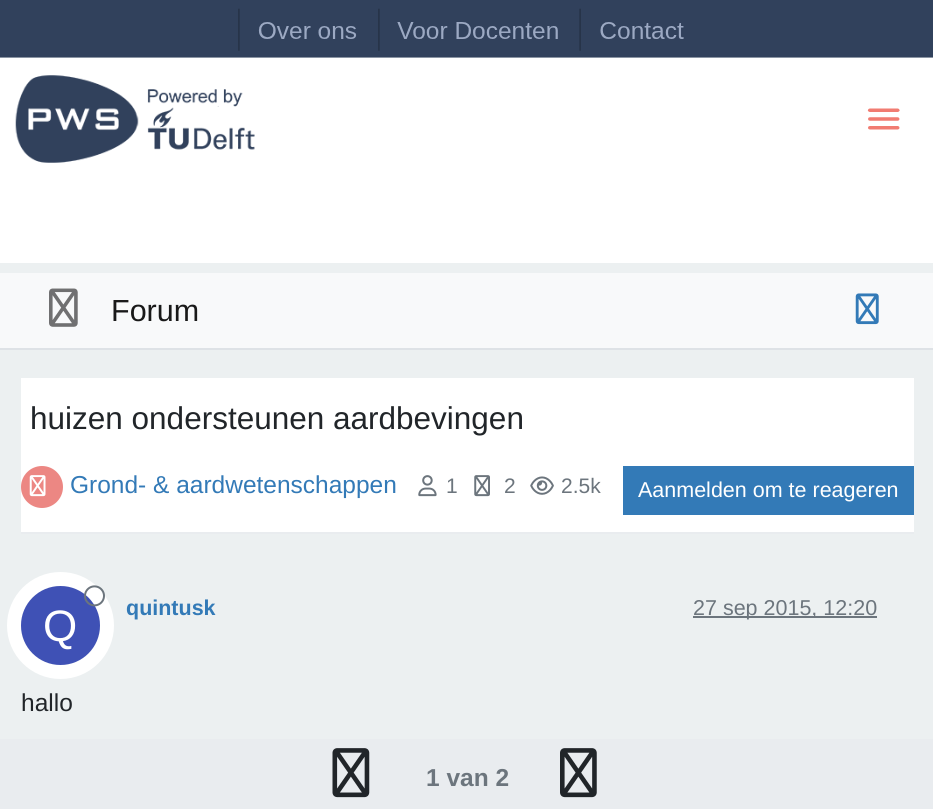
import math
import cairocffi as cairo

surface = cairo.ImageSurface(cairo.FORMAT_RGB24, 933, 809)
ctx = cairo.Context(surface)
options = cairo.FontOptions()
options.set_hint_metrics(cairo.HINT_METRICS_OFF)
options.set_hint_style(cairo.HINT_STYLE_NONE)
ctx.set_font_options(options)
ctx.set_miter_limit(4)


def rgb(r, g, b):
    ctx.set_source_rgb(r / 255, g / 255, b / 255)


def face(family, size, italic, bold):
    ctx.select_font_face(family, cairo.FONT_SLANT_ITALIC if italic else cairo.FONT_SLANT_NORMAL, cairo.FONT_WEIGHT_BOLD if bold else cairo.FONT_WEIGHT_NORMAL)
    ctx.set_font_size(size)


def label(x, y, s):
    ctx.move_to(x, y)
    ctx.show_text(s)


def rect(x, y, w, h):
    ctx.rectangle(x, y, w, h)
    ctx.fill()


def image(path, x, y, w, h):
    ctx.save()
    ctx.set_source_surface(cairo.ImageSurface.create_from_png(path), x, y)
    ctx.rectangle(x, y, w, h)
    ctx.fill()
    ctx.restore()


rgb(236, 240, 241)
ctx.paint()
image('image0.png', 0, 0, 933, 163)
rgb(255, 255, 255)
rect(0, 163, 933, 100)
rgb(248, 249, 250)
rect(0, 273, 933, 75)
rgb(222, 226, 230)
rect(0, 348, 933, 2)
image('image1.png', 49, 288, 29, 39)
face('Liberation Sans', 30.5, 0, 0)
rgb(25, 25, 25)
label(111, 321, 'Forum')
image('image2.png', 855, 293, 24, 32)
rgb(255, 255, 255)
rect(21, 378, 893, 154)
face('Liberation Sans', 31.5, 0, 0)
rgb(33, 37, 41)
label(30, 429, 'huizen ondersteunen aardbevingen')
rgb(233, 236, 239)
rect(21, 532, 893, 2)
rgb(236, 135, 131)
ctx.new_path()
ctx.arc(42, 487, 21, 0, 2 * math.pi)
ctx.fill()
image('image3.png', 29, 475, 17, 22)
face('Liberation Sans', 24.5, 0, 0)
rgb(51, 122, 183)
label(70, 493, 'Grond- & aardwetenschappen')
image('image4.png', 418, 475, 19, 22)
face('Liberation Sans', 21, 0, 0)
rgb(108, 117, 125)
label(446, 493, '1')
image('image5.png', 474, 475, 16, 22)
label(504, 493, '2')
image('image6.png', 530, 476, 24, 19)
label(561, 493, '2.5k')
rgb(51, 122, 183)
rect(623, 466, 291, 49)
face('Liberation Sans', 21.5, 0, 0)
rgb(255, 255, 255)
label(638, 497, 'Aanmelden om te reageren')
ctx.new_path()
ctx.arc(60.5, 625.5, 46.5, 0, 2 * math.pi)
ctx.set_line_width(14)
ctx.stroke()
rgb(63, 81, 181)
ctx.arc(60.5, 625.5, 39.5, 0, 2 * math.pi)
ctx.fill()
image('image7.png', 84, 585, 21, 22)
face('Liberation Sans', 44, 0, 0)
rgb(255, 255, 255)
label(43, 641, 'Q')
face('Liberation Sans', 21.5, 0, 1)
rgb(51, 122, 183)
label(126, 615, 'quintusk')
rgb(108, 117, 125)
rect(693, 616, 184, 2)
face('Liberation Sans', 21.5, 0, 0)
label(693, 615, '27 sep 2015, 12:20')
face('Liberation Sans', 24.5, 0, 0)
rgb(33, 37, 41)
label(21, 711, 'hallo')
rgb(233, 236, 239)
rect(0, 739, 933, 70)
image('image8.png', 332, 748, 38, 50)
face('Liberation Sans', 24.5, 0, 1)
rgb(108, 117, 125)
label(426, 786, '1 van 2')
image('image9.png', 560, 748, 37, 50)
surface.write_to_png('render.png')
